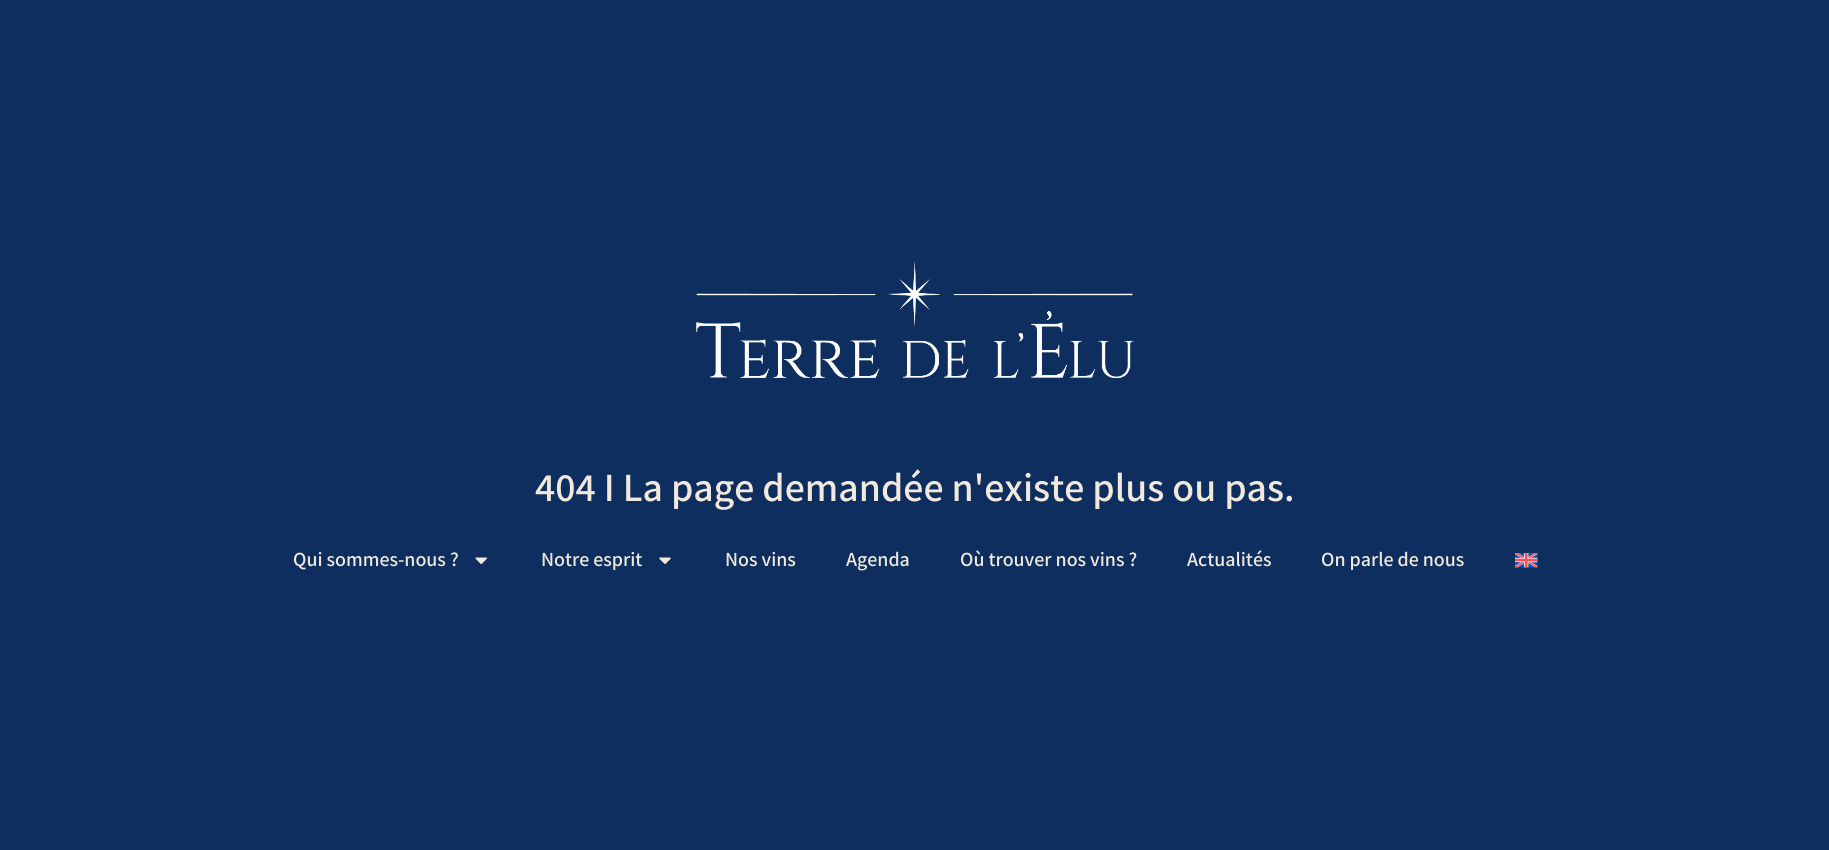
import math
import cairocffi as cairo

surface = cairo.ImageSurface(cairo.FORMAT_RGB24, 1829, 850)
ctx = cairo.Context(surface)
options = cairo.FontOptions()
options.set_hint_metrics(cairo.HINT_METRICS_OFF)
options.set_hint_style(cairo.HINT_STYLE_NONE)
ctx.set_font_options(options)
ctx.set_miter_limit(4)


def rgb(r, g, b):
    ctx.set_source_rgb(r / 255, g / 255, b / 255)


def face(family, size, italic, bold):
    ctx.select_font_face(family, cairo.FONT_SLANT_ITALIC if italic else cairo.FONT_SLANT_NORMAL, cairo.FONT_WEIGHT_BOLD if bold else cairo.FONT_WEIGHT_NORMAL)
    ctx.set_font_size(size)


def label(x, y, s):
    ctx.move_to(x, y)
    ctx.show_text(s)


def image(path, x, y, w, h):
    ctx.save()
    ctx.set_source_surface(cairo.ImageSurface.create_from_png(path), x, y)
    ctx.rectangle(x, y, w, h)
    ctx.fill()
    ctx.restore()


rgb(13, 46, 95)
ctx.paint()
image('image0.png', 696, 261, 438, 117)
face('Assistant SemiBold', 40, 0, 0)
rgb(241, 234, 220)
label(535, 501, '404 I La page demandée n\'existe plus ou pas.')
face('Assistant SemiBold', 20, 0, 0)
label(293, 566, 'Qui sommes-nous ?')
image('image1.png', 475, 557, 12, 7)
label(541, 566, 'Notre esprit')
image('image2.png', 659, 557, 12, 7)
label(725, 566, 'Nos vins')
label(846, 566, 'Agenda')
label(960, 566, 'Où trouver nos vins ?')
label(1187, 566, 'Actualités')
label(1321, 566, 'On parle de nous')
image('image3.png', 1515, 553, 23, 15)
surface.write_to_png('render.png')
